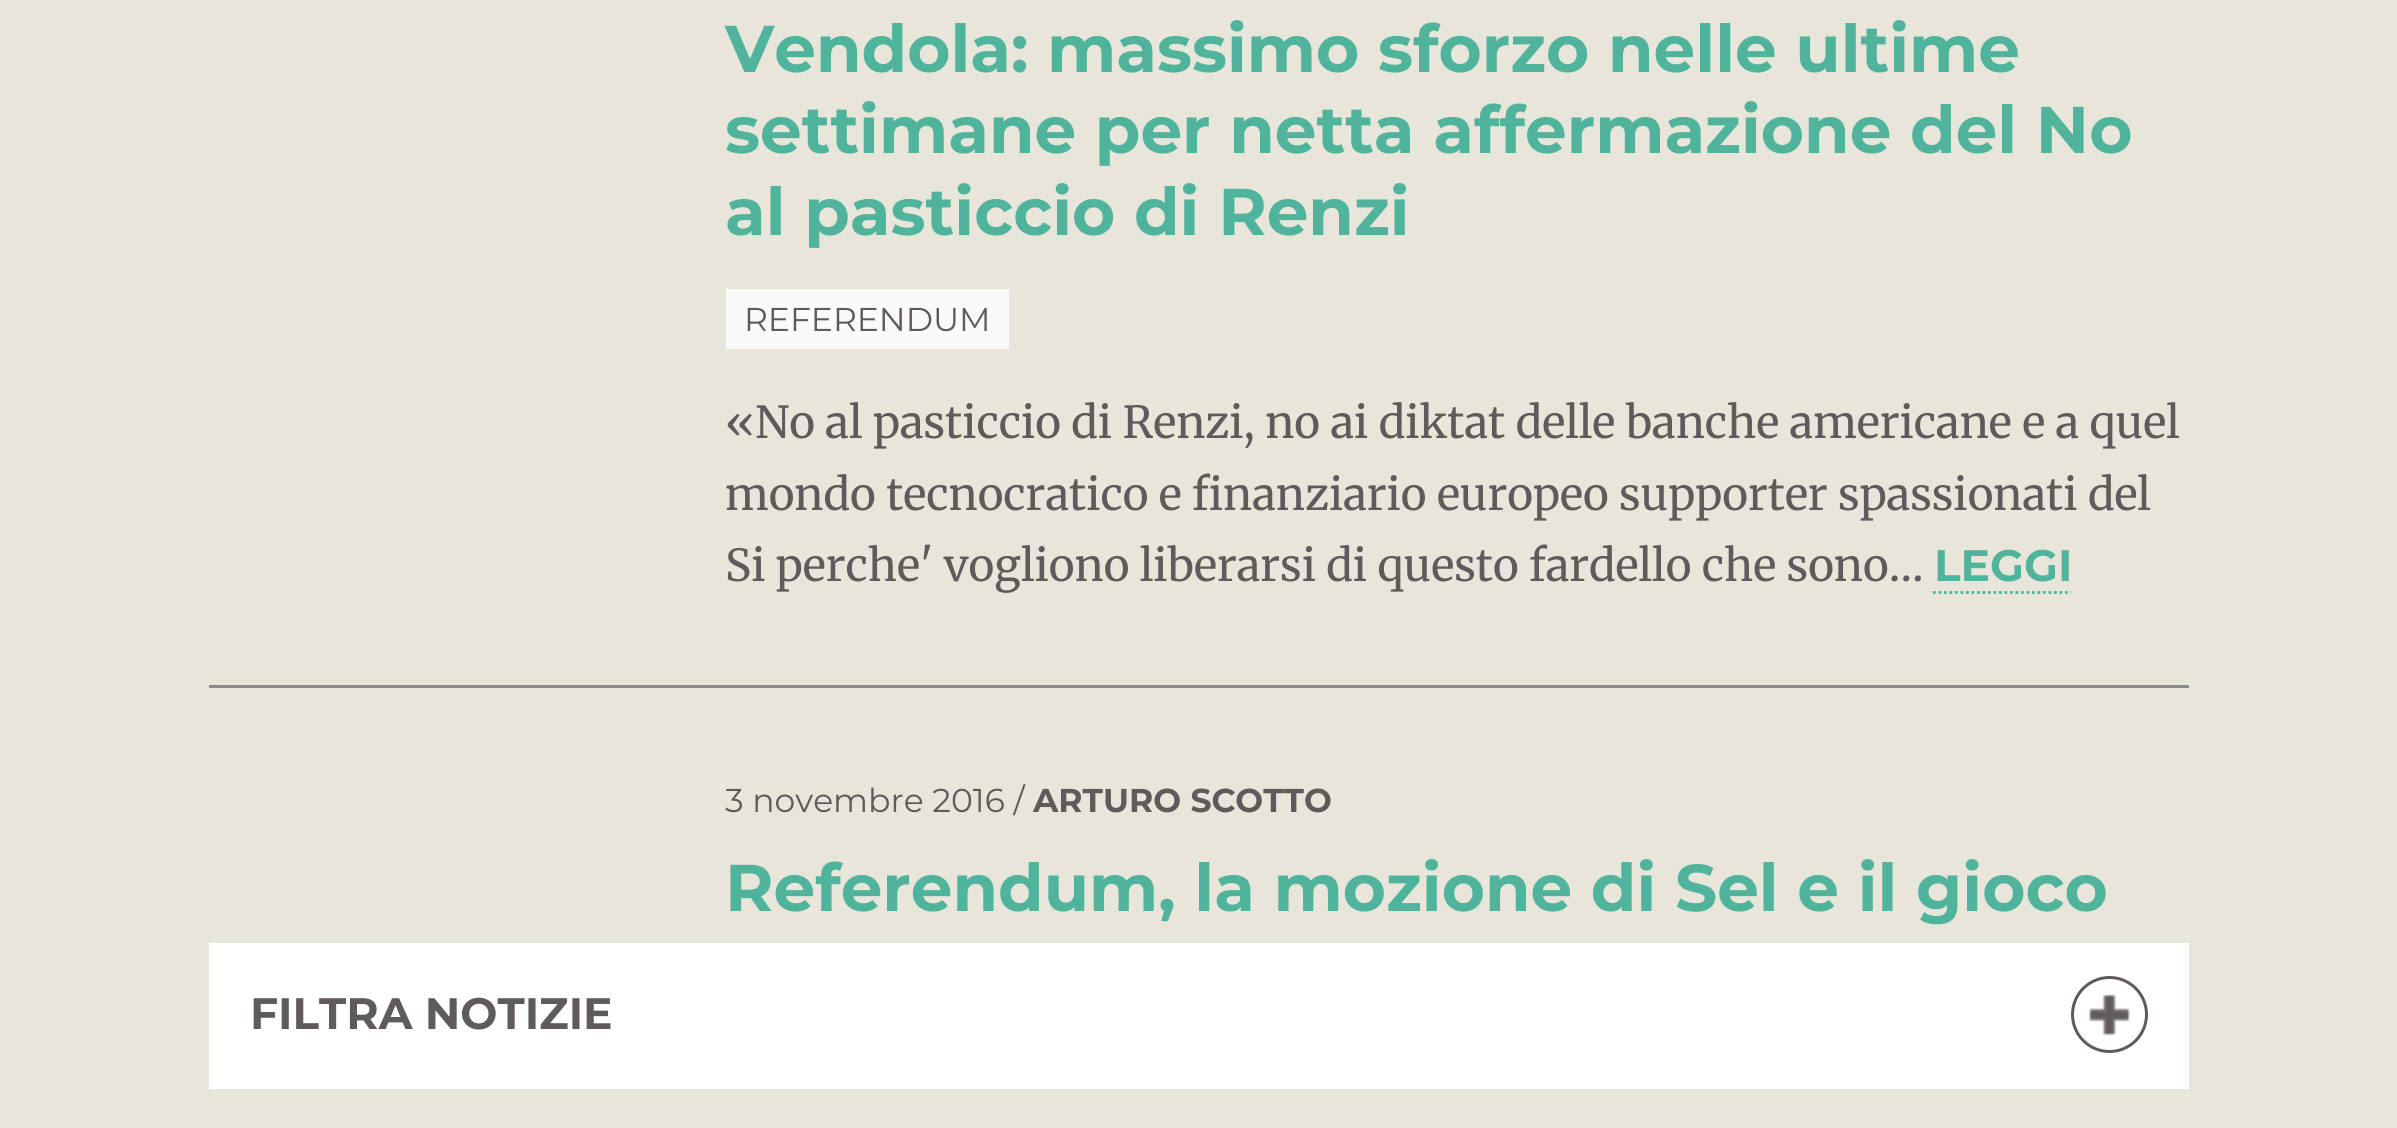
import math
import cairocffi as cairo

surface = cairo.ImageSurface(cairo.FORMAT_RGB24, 2397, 1128)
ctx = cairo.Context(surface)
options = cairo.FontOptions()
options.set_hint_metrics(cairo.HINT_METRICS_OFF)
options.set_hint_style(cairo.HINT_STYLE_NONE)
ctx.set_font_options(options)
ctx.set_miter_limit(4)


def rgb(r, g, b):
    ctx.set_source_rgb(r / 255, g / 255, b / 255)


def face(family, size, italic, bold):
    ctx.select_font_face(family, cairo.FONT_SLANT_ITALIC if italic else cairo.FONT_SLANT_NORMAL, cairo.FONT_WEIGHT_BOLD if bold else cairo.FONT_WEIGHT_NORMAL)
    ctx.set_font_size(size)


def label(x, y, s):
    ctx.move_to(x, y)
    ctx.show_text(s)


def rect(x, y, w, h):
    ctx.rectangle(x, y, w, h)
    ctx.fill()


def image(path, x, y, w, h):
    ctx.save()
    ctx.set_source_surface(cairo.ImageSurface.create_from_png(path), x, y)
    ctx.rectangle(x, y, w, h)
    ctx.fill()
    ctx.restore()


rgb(232, 230, 218)
ctx.paint()
face('Montserrat', 66, 0, 1)
rgb(80, 179, 156)
label(725, 72, 'Vendola: massimo sforzo nelle ultime')
label(725, 153, 'settimane per netta affermazione del No')
label(725, 235, 'al pasticcio di Renzi')
rgb(250, 250, 250)
rect(726, 289, 283, 60)
face('Montserrat', 33, 0, 0)
rgb(95, 90, 91)
label(744, 331, 'REFERENDUM')
face('Merriweather', 44, 0, 0)
label(725, 438, '«No al pasticcio di Renzi, no ai diktat delle banche americane e a quel')
label(725, 510, 'mondo tecnocratico e finanziario europeo supporter spassionati del')
label(725, 581, 'Si perche\' vogliono liberarsi di questo fardello che sono…')
face('Montserrat', 44, 0, 1)
rgb(80, 179, 156)
label(1934, 581, 'LEGGI')
ctx.new_path()
ctx.move_to(1933, 592.5)
ctx.line_to(2071, 592.5)
ctx.set_line_width(2.8)
ctx.set_dash([2.75, 2.75])
ctx.stroke()
rgb(140, 140, 140)
rect(209, 685, 1980, 3)
face('Montserrat', 33, 0, 0)
rgb(95, 90, 91)
label(725, 812, '3 novembre 2016 /')
face('Montserrat', 33, 0, 1)
label(1033, 812, 'ARTURO SCOTTO')
face('Montserrat', 66, 0, 1)
rgb(80, 179, 156)
label(725, 911, 'Referendum, la mozione di Sel e il gioco')
rgb(255, 255, 255)
rect(209, 943, 1980, 146)
face('Montserrat', 44, 0, 1)
rgb(95, 90, 91)
label(250, 1029, 'FILTRA NOTIZIE')
image('image0.png', 2088, 994, 42, 42)
ctx.arc(2109.5, 1014.5, 37, 0, 2 * math.pi)
ctx.set_line_width(3)
ctx.set_dash([])
ctx.stroke()
surface.write_to_png('render.png')
